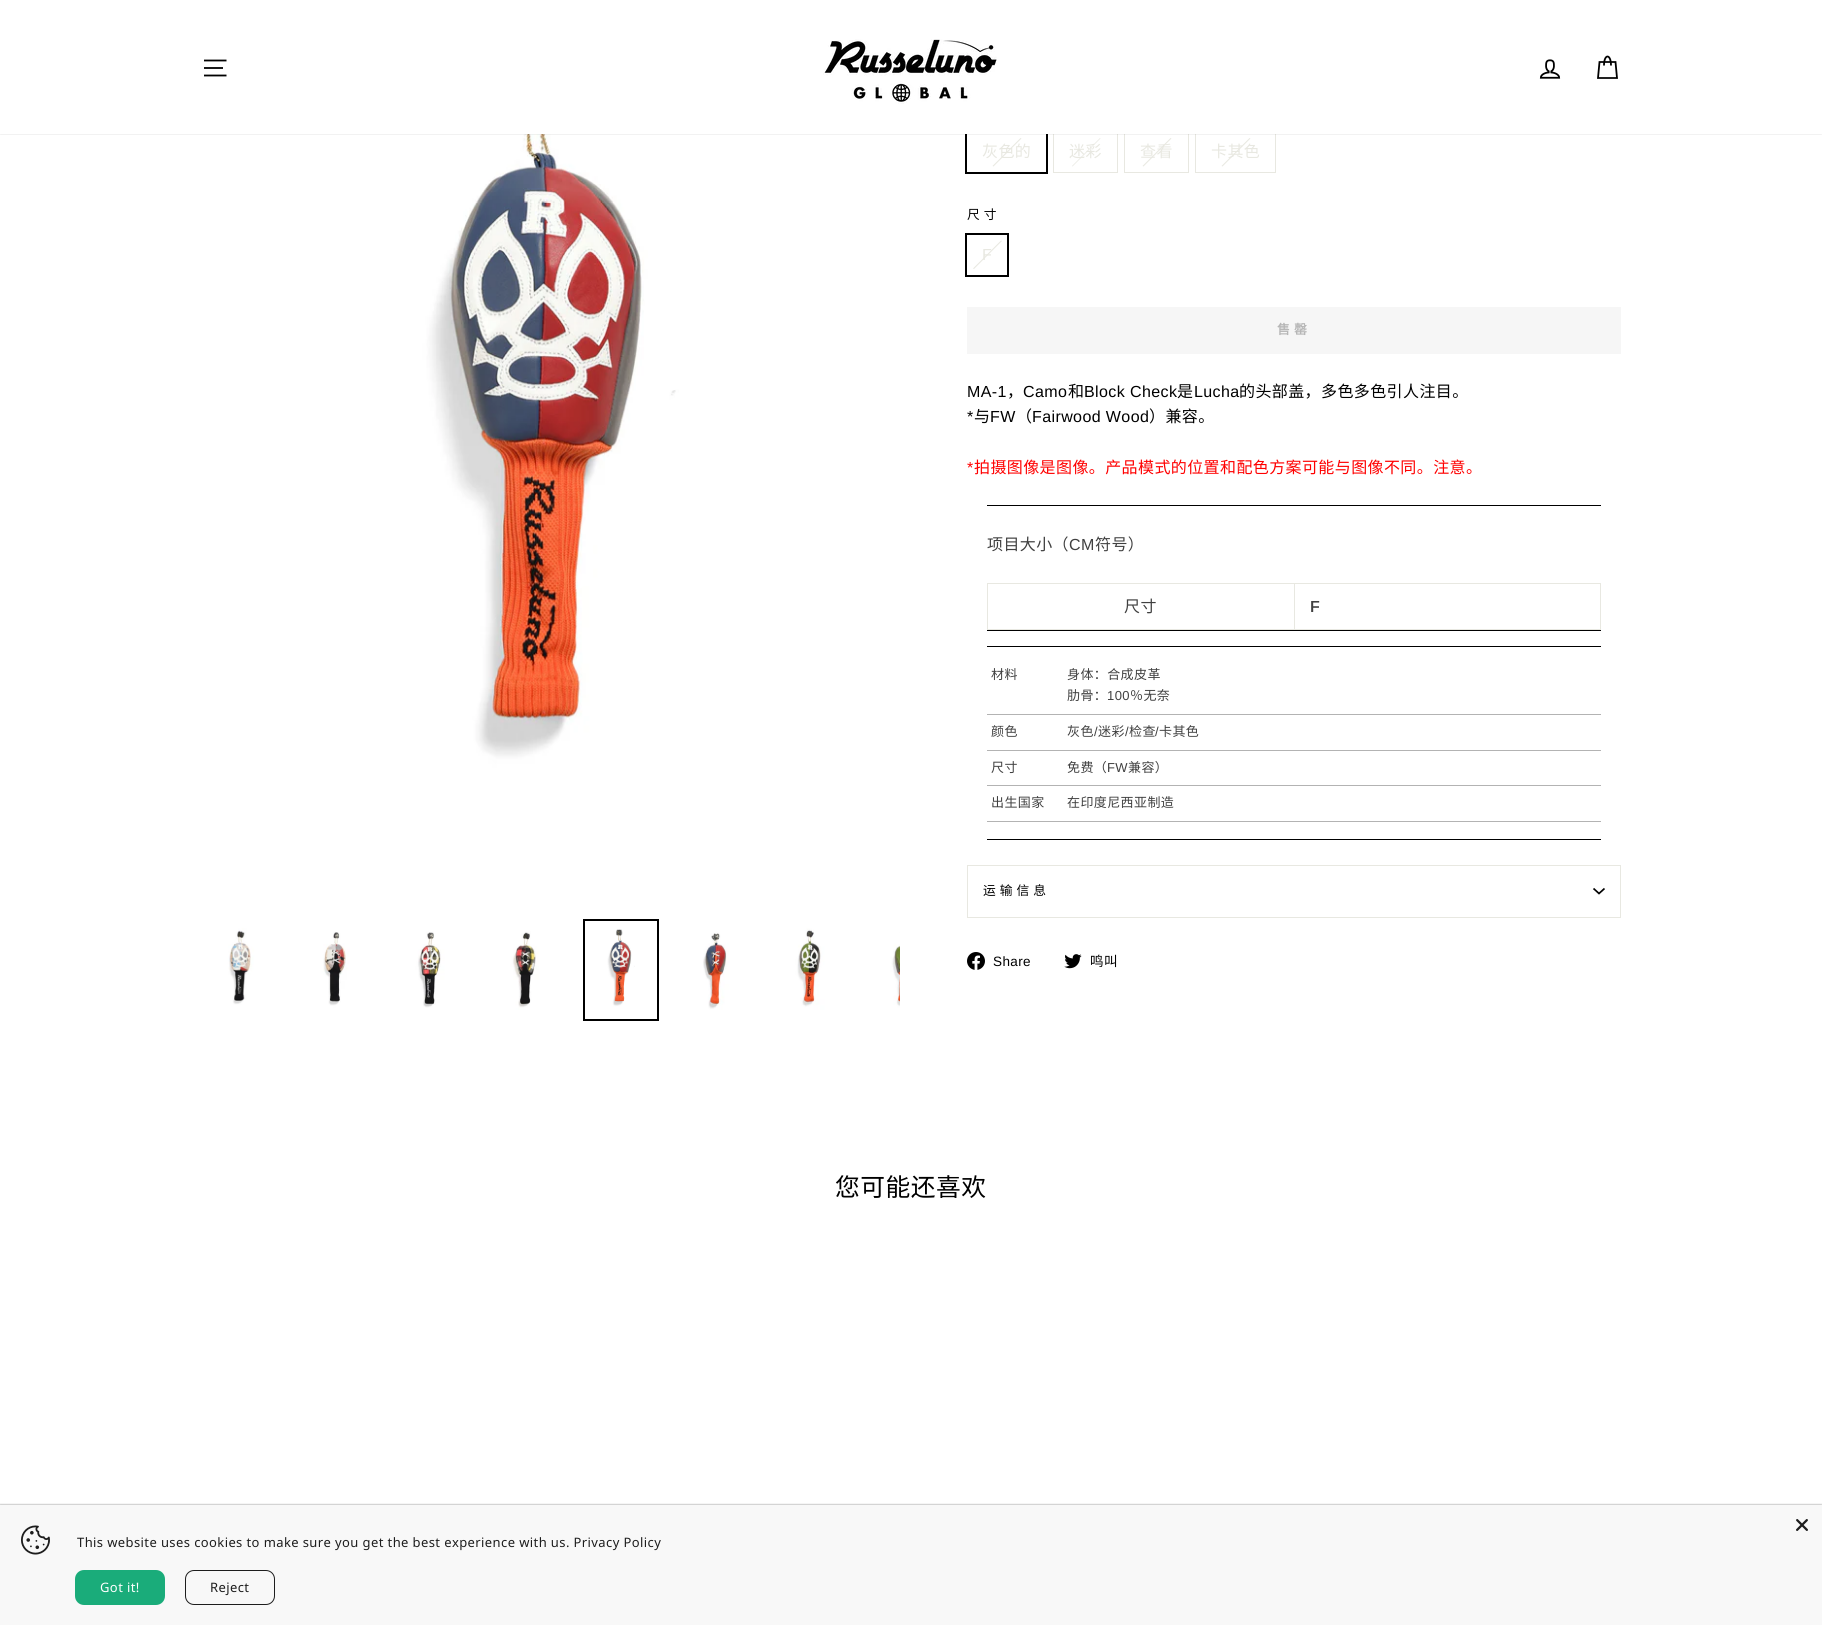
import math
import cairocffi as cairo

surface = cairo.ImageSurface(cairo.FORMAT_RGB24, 1822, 1625)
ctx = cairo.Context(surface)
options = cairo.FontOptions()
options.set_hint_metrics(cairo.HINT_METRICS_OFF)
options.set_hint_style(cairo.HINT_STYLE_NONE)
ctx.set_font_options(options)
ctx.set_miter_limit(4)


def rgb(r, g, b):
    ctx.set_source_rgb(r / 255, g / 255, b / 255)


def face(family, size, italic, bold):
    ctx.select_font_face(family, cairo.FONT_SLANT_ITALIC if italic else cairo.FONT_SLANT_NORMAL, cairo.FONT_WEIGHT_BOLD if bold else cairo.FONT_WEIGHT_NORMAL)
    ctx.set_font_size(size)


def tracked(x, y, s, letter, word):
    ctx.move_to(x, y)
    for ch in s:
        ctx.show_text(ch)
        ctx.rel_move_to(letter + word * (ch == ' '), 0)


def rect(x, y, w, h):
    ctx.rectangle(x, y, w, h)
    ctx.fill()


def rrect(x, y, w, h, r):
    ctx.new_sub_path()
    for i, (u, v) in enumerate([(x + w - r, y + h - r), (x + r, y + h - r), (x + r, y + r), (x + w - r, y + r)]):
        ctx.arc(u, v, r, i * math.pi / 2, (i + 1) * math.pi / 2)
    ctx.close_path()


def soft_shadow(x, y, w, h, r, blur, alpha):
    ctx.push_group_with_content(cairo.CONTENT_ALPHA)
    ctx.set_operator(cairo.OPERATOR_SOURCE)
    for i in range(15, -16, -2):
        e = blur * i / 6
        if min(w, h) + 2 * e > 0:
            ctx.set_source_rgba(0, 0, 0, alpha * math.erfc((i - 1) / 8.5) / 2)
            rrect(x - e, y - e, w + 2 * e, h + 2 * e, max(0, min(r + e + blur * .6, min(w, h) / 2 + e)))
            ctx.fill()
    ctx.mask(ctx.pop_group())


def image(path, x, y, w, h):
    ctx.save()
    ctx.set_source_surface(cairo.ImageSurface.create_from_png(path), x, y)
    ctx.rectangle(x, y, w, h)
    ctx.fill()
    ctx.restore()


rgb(255, 255, 255)
ctx.paint()
image('image2.png', 201, 134, 699, 765)
ctx.rectangle(966, 131, 81, 42)
rgb(0, 0, 0)
ctx.stroke()
ctx.rectangle(1053.5, 131.5, 64, 41)
rgb(232, 232, 225)
ctx.set_line_width(1)
ctx.stroke()
ctx.rectangle(1124.5, 131.5, 64, 41)
ctx.stroke()
ctx.rectangle(1195.5, 131.5, 80, 41)
ctx.stroke()
rgb(0, 0, 0)
soft_shadow(0, 0, 1822, 134, 0, 0.5, 0.2)
rgb(255, 255, 255)
rect(0, 0, 1822, 134)
ctx.new_path()
ctx.move_to(204, 60.5)
ctx.line_to(226.5, 60.5)
ctx.move_to(204, 68)
ctx.line_to(223, 68)
ctx.move_to(204, 75.5)
ctx.line_to(226.5, 75.5)
rgb(0, 0, 0)
ctx.set_line_width(1.8)
ctx.stroke()
image('image0.png', 823, 39, 174, 65)
image('image1.png', 1539, 59, 22, 20)
ctx.new_path()
ctx.move_to(1604, 65.5)
ctx.curve_to(1604, 53.5, 1611, 53.5, 1611, 65.5)
ctx.move_to(1599.5, 62)
ctx.line_to(1615.5, 62)
ctx.line_to(1617, 78)
ctx.line_to(1598, 78)
ctx.close_path()
ctx.stroke()
image('image3.png', 203, 919, 76, 102)
image('image4.png', 298, 919, 76, 102)
image('image5.png', 393, 919, 76, 102)
image('image6.png', 488, 919, 76, 102)
image('image7.png', 585, 921, 72, 98)
ctx.rectangle(584, 920, 74, 100)
ctx.set_line_width(2)
ctx.stroke()
image('image8.png', 678, 919, 76, 102)
image('image9.png', 773, 919, 76, 102)
image('image10.png', 868, 919, 32, 102)
rgb(232, 232, 225)
ctx.new_path()
ctx.move_to(1020.5, 138)
ctx.line_to(1021.5, 138.5)
ctx.line_to(993.5, 166.5)
ctx.line_to(992.5, 166)
ctx.close_path()
ctx.fill()
face('Noto Sans CJK SC', 16, 0, 0)
tracked(982, 157, '灰色的', 0.4, 0)
ctx.new_path()
ctx.move_to(1100, 138)
ctx.line_to(1100.5, 138.5)
ctx.line_to(1072.5, 166.5)
ctx.line_to(1072, 166)
ctx.close_path()
ctx.fill()
tracked(1069, 157, '迷彩', 0.4, 0)
ctx.new_path()
ctx.move_to(1170.5, 138)
ctx.line_to(1171.5, 138.5)
ctx.line_to(1143.5, 166.5)
ctx.line_to(1142.5, 166)
ctx.close_path()
ctx.fill()
tracked(1140, 157, '查看', 0.4, 0)
ctx.new_path()
ctx.move_to(1249.5, 138)
ctx.line_to(1250.5, 138.5)
ctx.line_to(1222.5, 166.5)
ctx.line_to(1221.5, 166)
ctx.close_path()
ctx.fill()
tracked(1211, 157, '卡其色', 0.4, 0)
face('Noto Sans CJK SC', 12.75, 0, 0)
rgb(0, 0, 0)
tracked(967, 219, '尺寸', 4, 0)
ctx.rectangle(966, 234, 42, 42)
ctx.stroke()
rgb(232, 232, 225)
ctx.new_path()
ctx.move_to(1001, 240.5)
ctx.line_to(1002, 241)
ctx.line_to(974, 269)
ctx.line_to(973, 268.5)
ctx.close_path()
ctx.fill()
face('Arimo', 16, 0, 0)
tracked(982, 260, 'F', 0.4, 0)
rgb(246, 246, 246)
rect(967, 307, 654, 47)
face('Noto Sans CJK SC', 13, 0, 1)
rgb(182, 182, 182)
tracked(1277, 334, '售罄', 4, 0)
face('Arimo', 16, 0, 0)
rgb(0, 0, 0)
tracked(967, 397, 'MA-1', 0.4, 0)
face('Noto Sans CJK SC', 16, 0, 0)
tracked(1007, 397, '，', 0.4, 0)
face('Arimo', 16, 0, 0)
tracked(1023, 397, 'Camo', 0.4, 0)
face('Noto Sans CJK SC', 16, 0, 0)
tracked(1068, 397, '和', 0.4, 0)
face('Arimo', 16, 0, 0)
tracked(1084, 397, 'Block Check', 0.4, 0)
face('Noto Sans CJK SC', 16, 0, 0)
tracked(1177, 397, '是', 0.4, 0)
face('Arimo', 16, 0, 0)
tracked(1194, 397, 'Lucha', 0.4, 0)
face('Noto Sans CJK SC', 16, 0, 0)
tracked(1239, 397, '的头部盖，多色多色引人注目。', 0.4, 0)
face('Arimo', 16, 0, 0)
tracked(967, 422, '*', 0.4, 0)
face('Noto Sans CJK SC', 16, 0, 0)
tracked(974, 422, '与', 0.4, 0)
face('Arimo', 16, 0, 0)
tracked(990, 422, 'FW', 0.4, 0)
face('Noto Sans CJK SC', 16, 0, 0)
tracked(1016, 422, '（', 0.4, 0)
face('Arimo', 16, 0, 0)
tracked(1032, 422, 'Fairwood Wood', 0.4, 0)
face('Noto Sans CJK SC', 16, 0, 0)
tracked(1149, 422, '）兼容。', 0.4, 0)
face('Arimo', 16, 0, 0)
rgb(255, 0, 0)
tracked(967, 473, '*', 0.4, 0)
face('Noto Sans CJK SC', 16, 0, 0)
tracked(974, 473, '拍摄图像是图像。产品模式的位置和配色方案可能与图像不同。注意。', 0.4, 0)
rgb(0, 0, 0)
rect(987, 505, 614, 1)
rect(987, 630, 614, 1)
rgb(64, 64, 64)
tracked(987, 550, '项目大小（', 0.4, 0)
face('Arimo', 16, 0, 0)
tracked(1069, 550, 'CM', 0.4, 0)
face('Noto Sans CJK SC', 16, 0, 0)
tracked(1095, 550, '符号）', 0.4, 0)
rgb(232, 232, 225)
rect(987, 583, 614, 47)
rgb(255, 255, 255)
rect(988, 584, 306, 45)
rgb(64, 64, 64)
tracked(1124, 612, '尺寸', 0.4, 0)
rgb(255, 255, 255)
rect(1295, 584, 305, 45)
face('Arimo SemiBold', 16, 0, 0)
rgb(64, 64, 64)
tracked(1310, 612, 'F', 0.4, 0)
rgb(0, 0, 0)
rect(987, 646, 614, 1)
rect(987, 839, 614, 1)
rgb(179, 179, 179)
rect(987, 714, 614, 1)
face('Noto Sans CJK SC', 13, 0, 0)
rgb(64, 64, 64)
tracked(991, 679, '材料', 0.4, 0)
tracked(1067, 679, '身体：合成皮革', 0.4, 0)
tracked(1067, 700, '肋骨：', 0.4, 0)
face('Arimo', 13, 0, 0)
tracked(1107, 700, '100', 0.4, 0)
face('Noto Sans CJK SC', 13, 0, 0)
tracked(1130, 700, '％无奈', 0.4, 0)
rgb(179, 179, 179)
rect(987, 750, 614, 1)
rgb(64, 64, 64)
tracked(991, 736, '颜色', 0.4, 0)
tracked(1067, 736, '灰色', 0.4, 0)
face('Arimo', 13, 0, 0)
tracked(1094, 736, '/', 0.4, 0)
face('Noto Sans CJK SC', 13, 0, 0)
tracked(1098, 736, '迷彩', 0.4, 0)
face('Arimo', 13, 0, 0)
tracked(1125, 736, '/', 0.4, 0)
face('Noto Sans CJK SC', 13, 0, 0)
tracked(1129, 736, '检查', 0.4, 0)
face('Arimo', 13, 0, 0)
tracked(1155, 736, '/', 0.4, 0)
face('Noto Sans CJK SC', 13, 0, 0)
tracked(1159, 736, '卡其色', 0.4, 0)
rgb(179, 179, 179)
rect(987, 785, 614, 1)
rgb(64, 64, 64)
tracked(991, 772, '尺寸', 0.4, 0)
tracked(1067, 772, '免费（', 0.4, 0)
face('Arimo', 13, 0, 0)
tracked(1107, 772, 'FW', 0.4, 0)
face('Noto Sans CJK SC', 13, 0, 0)
tracked(1128, 772, '兼容）', 0.4, 0)
rgb(179, 179, 179)
rect(987, 821, 614, 1)
rgb(64, 64, 64)
tracked(991, 807, '出生国家', 0.4, 0)
tracked(1067, 807, '在印度尼西亚制造', 0.4, 0)
rgb(232, 232, 225)
rect(967, 917, 654, 1)
rect(967, 865, 654, 1)
rect(1620, 865, 1, 52)
rect(967, 865, 1, 52)
face('Noto Sans CJK SC', 12.75, 0, 0)
rgb(0, 0, 0)
tracked(983, 895, '运输信息', 4, 0)
ctx.new_path()
ctx.move_to(1593.5, 888.5)
ctx.line_to(1599, 893.5)
ctx.line_to(1604.5, 888.5)
ctx.set_line_width(1.7)
ctx.stroke()
image('image11.png', 967, 952, 18, 18)
face('Arimo', 13.5, 0, 0)
tracked(993, 966, 'Share', 0.4, 0)
image('image12.png', 1064, 954, 18, 15)
face('Noto Sans CJK SC', 13.5, 0, 0)
tracked(1090, 966, '鸣叫', 0.4, 0)
face('Noto Sans CJK SC', 24.75, 0, 0)
tracked(835, 1196, '您可能还喜欢', 0.5, 0)
rgb(0, 0, 0)
soft_shadow(0, 1505, 1822, 120, 0, 1, 0.5)
rgb(248, 248, 248)
rect(0, 1505, 1822, 120)
image('image13.png', 1796, 1519, 12, 12)
image('image14.png', 21, 1525, 29, 30)
face('Noto Sans', 13, 0, 0)
rgb(29, 29, 29)
tracked(77, 1547, 'This website uses cookies to make sure you get the best experience with us. Privacy Policy', 0.4, 0)
rgb(26, 172, 122)
rrect(75, 1570, 90, 35, 9)
ctx.fill()
rgb(255, 255, 255)
tracked(100, 1592, 'Got it!', 0.4, 0)
rrect(185.5, 1570.5, 89, 34, 8.5)
rgb(29, 29, 29)
ctx.set_line_width(1)
ctx.stroke()
tracked(210, 1592, 'Reject', 0.4, 0)
surface.write_to_png('render.png')
